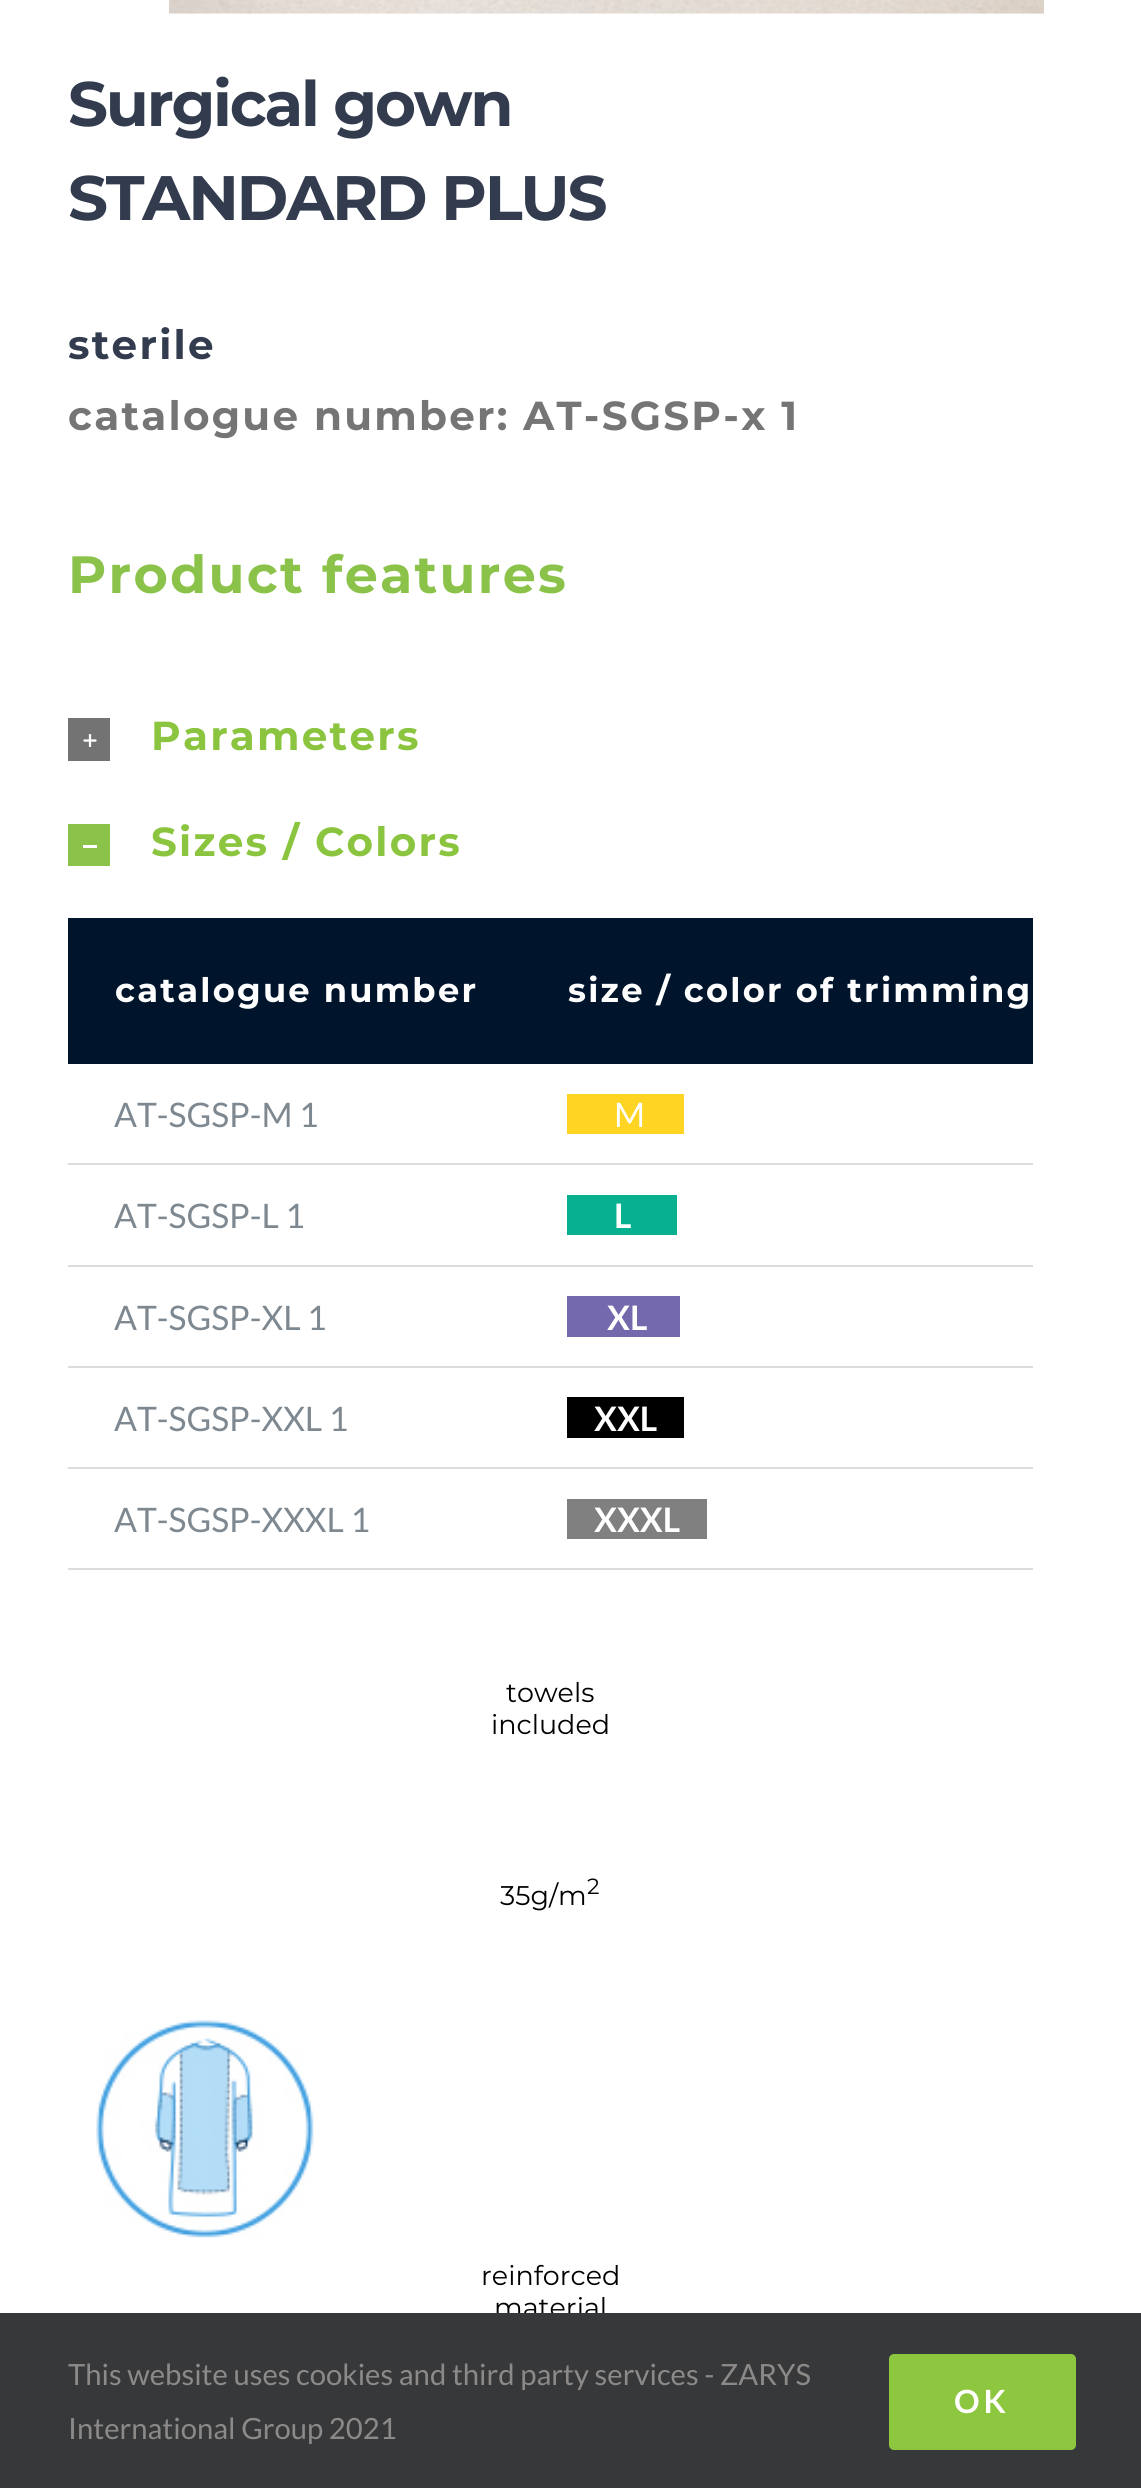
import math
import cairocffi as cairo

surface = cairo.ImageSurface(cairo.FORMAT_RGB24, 1141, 2488)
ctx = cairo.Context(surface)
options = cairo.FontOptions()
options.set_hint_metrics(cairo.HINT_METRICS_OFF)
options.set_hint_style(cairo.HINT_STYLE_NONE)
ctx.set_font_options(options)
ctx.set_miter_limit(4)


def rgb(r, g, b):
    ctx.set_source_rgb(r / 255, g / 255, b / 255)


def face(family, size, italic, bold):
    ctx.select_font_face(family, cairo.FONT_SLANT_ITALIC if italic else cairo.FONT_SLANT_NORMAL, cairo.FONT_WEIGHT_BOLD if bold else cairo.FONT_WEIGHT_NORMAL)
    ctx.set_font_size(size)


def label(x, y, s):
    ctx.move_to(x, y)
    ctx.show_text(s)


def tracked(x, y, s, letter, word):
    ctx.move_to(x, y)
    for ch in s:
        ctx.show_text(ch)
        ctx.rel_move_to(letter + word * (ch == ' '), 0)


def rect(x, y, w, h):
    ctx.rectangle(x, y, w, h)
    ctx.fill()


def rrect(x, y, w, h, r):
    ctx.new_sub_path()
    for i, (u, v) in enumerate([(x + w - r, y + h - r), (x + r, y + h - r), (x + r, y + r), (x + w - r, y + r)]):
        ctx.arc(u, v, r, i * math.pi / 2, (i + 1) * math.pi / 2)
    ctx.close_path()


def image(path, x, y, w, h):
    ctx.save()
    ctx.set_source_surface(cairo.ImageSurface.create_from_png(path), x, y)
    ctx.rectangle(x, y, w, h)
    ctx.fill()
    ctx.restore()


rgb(255, 255, 255)
ctx.paint()
image('image0.png', 169, 0, 875, 14)
face('Montserrat', 62.75, 0, 1)
rgb(51, 60, 78)
tracked(68, 126, 'Surgical gown', -2.25, 0)
tracked(68, 220, 'STANDARD PLUS', -2.25, 0)
face('Montserrat', 40.5, 0, 1)
tracked(68, 359, 'sterile', 2.25, 0)
rgb(117, 117, 117)
tracked(68, 430, 'catalogue number: AT-SGSP-x 1', 2.25, 0)
face('Montserrat', 52.4, 0, 1)
rgb(139, 195, 74)
tracked(68, 593, 'Product features', 2.25, 0)
rgb(115, 115, 115)
rect(68, 718, 42, 43)
image('image1.png', 83, 734, 14, 13)
face('Montserrat', 40.5, 0, 1)
rgb(139, 197, 63)
tracked(151, 750, 'Parameters', 2.25, 0)
rgb(139, 195, 74)
rect(68, 824, 42, 42)
rgb(255, 255, 255)
rect(83, 845, 14, 3)
rgb(139, 197, 63)
tracked(151, 856, 'Sizes / Colors', 2.25, 0)
rgb(0, 20, 43)
rect(70, 920, 963, 142)
rect(68, 918, 965, 2)
rect(68, 1062, 965, 2)
rect(68, 918, 2, 146)
face('Montserrat', 33.75, 0, 1)
rgb(255, 255, 255)
tracked(115, 1002, 'catalogue number', 2.25, 0)
tracked(568, 1002, 'size / color of trimming', 2.25, 0)
face('Lato', 33.75, 0, 0)
rgb(126, 136, 144)
label(114, 1127, 'AT-SGSP-M 1')
rgb(220, 220, 220)
rect(68, 1163, 965, 2)
rgb(255, 212, 34)
rect(567, 1094, 117, 40)
rgb(255, 255, 255)
label(614, 1127, 'M')
rgb(126, 136, 144)
label(114, 1228, 'AT-SGSP-L 1')
rgb(220, 220, 220)
rect(68, 1265, 965, 2)
rgb(7, 177, 143)
rect(567, 1195, 110, 40)
face('Lato', 33.75, 0, 1)
rgb(255, 255, 255)
label(614, 1228, 'L')
face('Lato', 33.75, 0, 0)
rgb(126, 136, 144)
label(114, 1330, 'AT-SGSP-XL 1')
rgb(220, 220, 220)
rect(68, 1366, 965, 2)
rgb(117, 105, 173)
rect(567, 1296, 113, 41)
face('Lato', 33.75, 0, 1)
rgb(255, 255, 255)
label(607, 1330, 'XL')
face('Lato', 33.75, 0, 0)
rgb(126, 136, 144)
label(114, 1431, 'AT-SGSP-XXL 1')
rgb(220, 220, 220)
rect(68, 1467, 965, 2)
rgb(0, 0, 0)
rect(567, 1397, 117, 41)
face('Lato', 33.75, 0, 1)
rgb(255, 255, 255)
label(594, 1431, 'XXL')
face('Lato', 33.75, 0, 0)
rgb(126, 136, 144)
label(114, 1532, 'AT-SGSP-XXXL 1')
rgb(220, 220, 220)
rect(68, 1568, 965, 2)
rgb(128, 128, 128)
rect(567, 1499, 140, 40)
face('Lato', 33.75, 0, 1)
rgb(255, 255, 255)
label(594, 1532, 'XXXL')
face('Montserrat', 27, 0, 0)
rgb(0, 0, 0)
label(506, 1702, 'towels')
label(491, 1734, 'included')
label(500, 1905, '35g/m')
face('Montserrat', 22, 0, 0)
label(587, 1894, '2')
image('image2.png', 96, 2020, 218, 218)
face('Montserrat', 27, 0, 0)
label(481, 2285, 'reinforced')
label(494, 2317, 'material')
rgb(54, 56, 57)
rect(0, 2313, 1141, 175)
face('Lato', 29.25, 0, 0)
rgb(140, 137, 137)
label(68, 2385, 'This website uses cookies and third party services - ZARYS')
label(68, 2439, 'International Group 2021')
rgb(141, 198, 63)
rrect(889, 2354, 187, 96, 5)
ctx.fill()
face('Lato', 32, 0, 1)
rgb(255, 255, 255)
tracked(954, 2413, 'OK', 4, 0)
surface.write_to_png('render.png')
